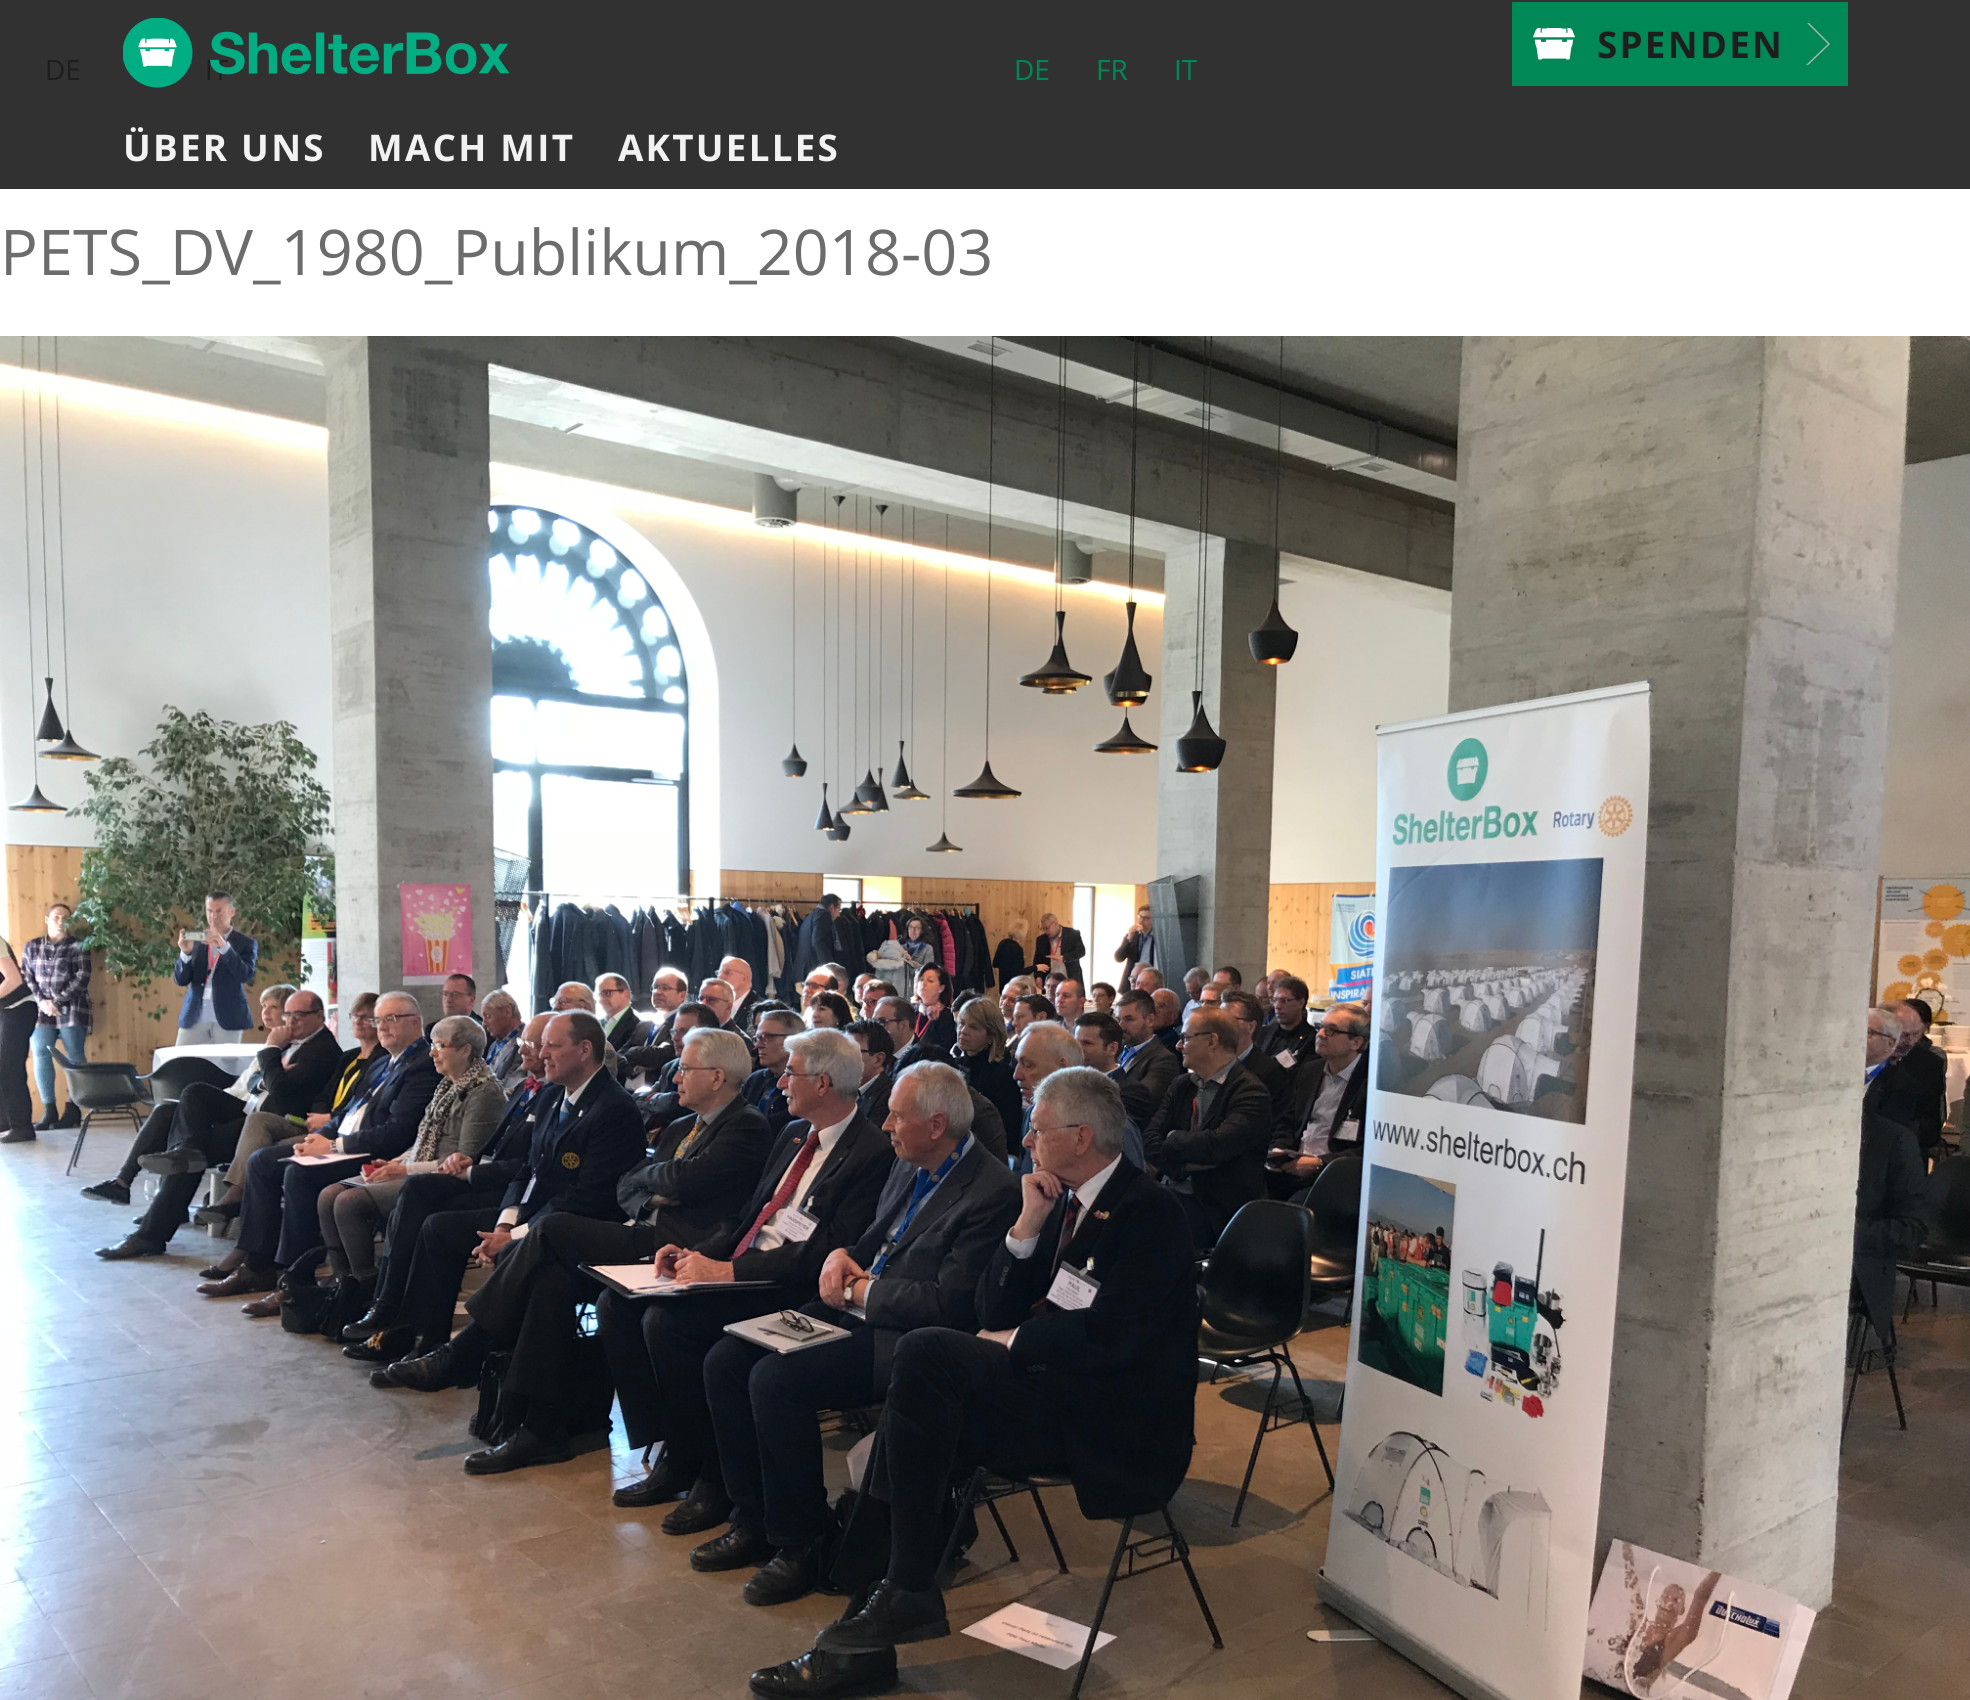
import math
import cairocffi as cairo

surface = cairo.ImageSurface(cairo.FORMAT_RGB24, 1970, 1700)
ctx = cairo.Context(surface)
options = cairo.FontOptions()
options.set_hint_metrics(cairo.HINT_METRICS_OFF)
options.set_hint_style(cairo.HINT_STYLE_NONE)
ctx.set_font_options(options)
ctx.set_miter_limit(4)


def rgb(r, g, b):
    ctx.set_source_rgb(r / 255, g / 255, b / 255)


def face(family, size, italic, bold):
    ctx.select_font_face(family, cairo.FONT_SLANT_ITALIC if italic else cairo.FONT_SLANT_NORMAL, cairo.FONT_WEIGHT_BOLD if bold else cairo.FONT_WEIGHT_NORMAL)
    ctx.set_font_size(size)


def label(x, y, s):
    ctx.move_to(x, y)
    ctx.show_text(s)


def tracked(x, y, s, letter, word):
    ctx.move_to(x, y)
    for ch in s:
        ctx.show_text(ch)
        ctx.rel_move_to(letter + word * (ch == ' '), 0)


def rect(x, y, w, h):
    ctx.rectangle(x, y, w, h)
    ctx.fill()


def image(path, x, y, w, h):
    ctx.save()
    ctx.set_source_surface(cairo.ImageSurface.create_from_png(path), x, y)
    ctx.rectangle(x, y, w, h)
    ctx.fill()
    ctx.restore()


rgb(255, 255, 255)
ctx.paint()
rgb(49, 49, 49)
rect(0, 0, 1970, 189)
face('Open Sans', 28, 0, 0)
rgb(30, 30, 30)
label(205, 80, 'IT')
image('image0.png', 123, 18, 387, 70)
rgb(0, 136, 87)
rect(1512, 2, 336, 84)
image('image1.png', 1533, 27, 42, 33)
face('Open Sans', 36.75, 0, 1)
rgb(30, 30, 30)
tracked(1597, 58, 'SPENDEN', 2.25, 0)
ctx.save()
ctx.rectangle(1796, 23, 42, 42)
ctx.clip()
rgb(177, 178, 184)
ctx.new_path()
ctx.move_to(1830, 44)
ctx.line_to(1805, 19)
ctx.line_to(1804, 20)
ctx.line_to(1828, 44)
ctx.line_to(1804, 67)
ctx.line_to(1805, 68)
ctx.fill()
ctx.restore()
rgb(242, 242, 242)
tracked(123, 161, 'ÜBER UNS', 2.25, 0)
tracked(368, 161, 'MACH MIT', 2.25, 0)
tracked(618, 161, 'AKTUELLES', 2.25, 0)
face('Open Sans', 28, 0, 0)
rgb(0, 136, 87)
label(1014, 80, 'DE')
label(1096, 80, 'FR')
label(1174, 80, 'IT')
face('Open Sans', 63, 0, 0)
rgb(108, 108, 108)
label(0, 275, 'PETS_DV_1980_Publikum_2018-03')
image('image2.png', 0, 336, 1970, 1364)
face('Open Sans', 28, 0, 0)
rgb(30, 30, 30)
label(45, 80, 'DE')
surface.write_to_png('render.png')
